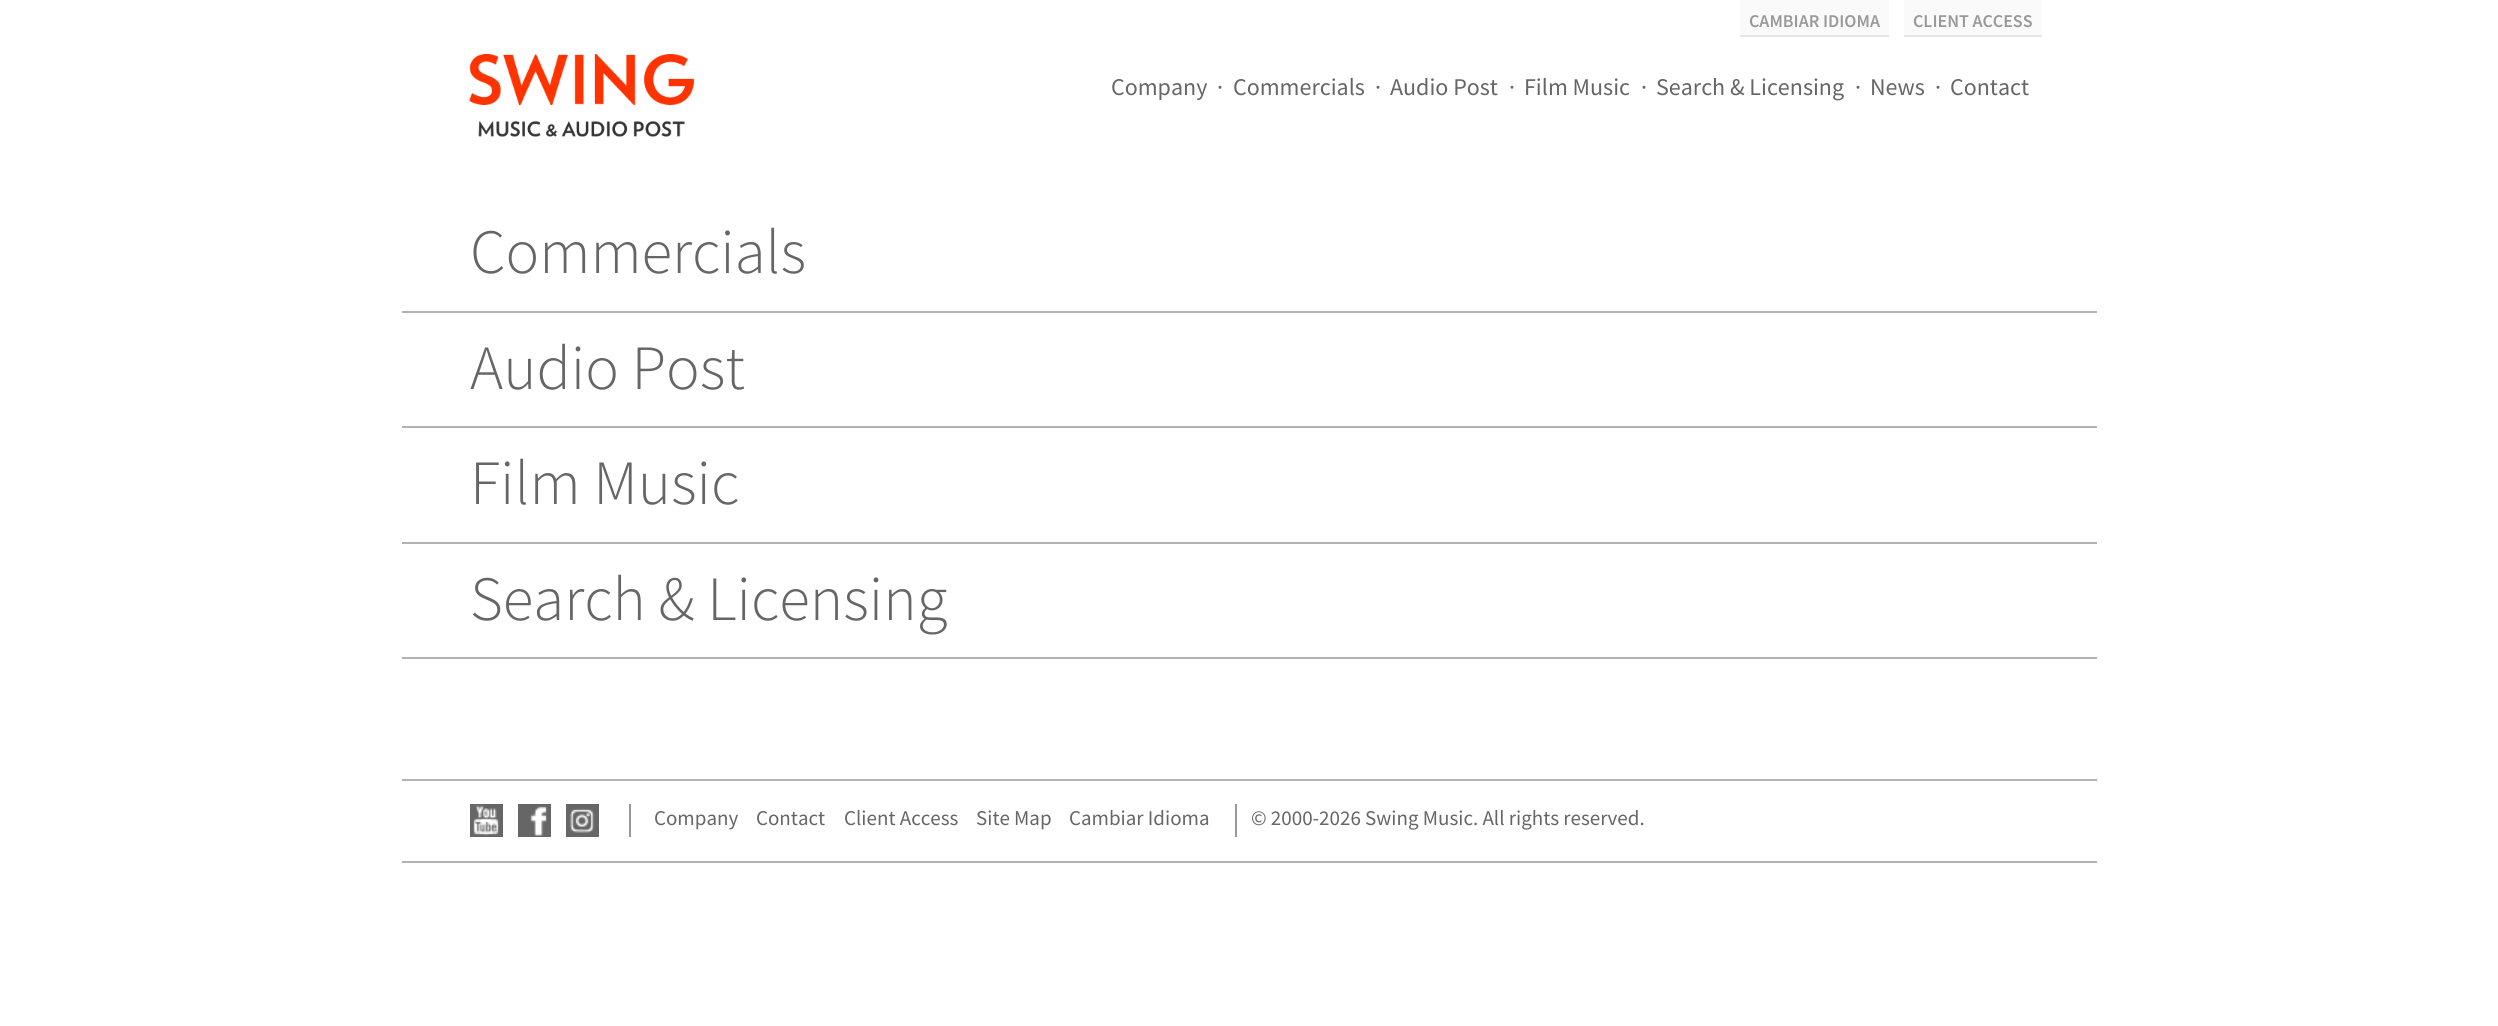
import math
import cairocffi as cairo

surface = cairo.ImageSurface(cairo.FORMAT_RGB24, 2498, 1026)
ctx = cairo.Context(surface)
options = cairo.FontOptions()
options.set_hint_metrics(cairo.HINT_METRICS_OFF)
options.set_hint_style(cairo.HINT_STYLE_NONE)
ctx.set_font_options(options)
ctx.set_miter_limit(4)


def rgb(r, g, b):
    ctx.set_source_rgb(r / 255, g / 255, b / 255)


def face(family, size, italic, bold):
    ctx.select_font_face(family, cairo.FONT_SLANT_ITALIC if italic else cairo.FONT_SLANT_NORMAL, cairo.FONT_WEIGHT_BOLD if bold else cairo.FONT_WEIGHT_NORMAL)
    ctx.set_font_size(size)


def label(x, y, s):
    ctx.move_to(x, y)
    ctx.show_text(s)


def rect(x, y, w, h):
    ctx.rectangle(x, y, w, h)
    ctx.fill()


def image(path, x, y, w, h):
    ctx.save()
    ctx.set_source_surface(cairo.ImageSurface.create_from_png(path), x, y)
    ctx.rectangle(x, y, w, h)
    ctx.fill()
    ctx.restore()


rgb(255, 255, 255)
ctx.paint()
rgb(250, 250, 250)
rect(1740, 0, 149, 35)
rgb(230, 230, 230)
rect(1740, 35, 149, 2)
face('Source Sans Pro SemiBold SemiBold', 18, 0, 0)
rgb(153, 153, 153)
label(1749, 27, 'CAMBIAR IDIOMA')
rgb(250, 250, 250)
rect(1904, 0, 138, 35)
rgb(230, 230, 230)
rect(1904, 35, 138, 2)
rgb(153, 153, 153)
label(1913, 27, 'CLIENT ACCESS')
image('image0.png', 469, 54, 225, 83)
face('Source Sans Pro', 24, 0, 0)
rgb(102, 102, 102)
label(1111, 95, 'Company')
label(1217, 95, '·')
label(1233, 95, 'Commercials')
label(1375, 95, '·')
label(1390, 95, 'Audio Post')
label(1509, 95, '·')
label(1524, 95, 'Film Music')
label(1641, 95, '·')
label(1656, 95, 'Search & Licensing')
label(1855, 95, '·')
label(1870, 95, 'News')
label(1935, 95, '·')
label(1950, 95, 'Contact')
rgb(178, 178, 178)
rect(402, 311, 1695, 2)
face('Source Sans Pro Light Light', 63, 0, 0)
rgb(102, 102, 102)
label(470, 273, 'Commercials')
rgb(178, 178, 178)
rect(402, 426, 1695, 2)
rgb(102, 102, 102)
label(470, 389, 'Audio Post')
rgb(178, 178, 178)
rect(402, 542, 1695, 2)
rgb(102, 102, 102)
label(470, 504, 'Film Music')
rgb(178, 178, 178)
rect(402, 657, 1695, 2)
rgb(102, 102, 102)
label(470, 620, 'Search & Licensing')
rgb(178, 178, 178)
rect(402, 779, 1695, 2)
rect(402, 861, 1695, 2)
rgb(102, 102, 102)
rect(470, 804, 33, 33)
image('image1.png', 473, 805, 26, 31)
rect(518, 804, 33, 33)
image('image2.png', 530, 806, 17, 30)
rect(566, 804, 33, 33)
image('image3.png', 569, 808, 26, 25)
rgb(153, 153, 153)
rect(1235, 804, 2, 33)
rect(629, 804, 2, 33)
face('Source Sans Pro', 21, 0, 0)
rgb(102, 102, 102)
label(654, 825, 'Company')
label(756, 825, 'Contact')
label(844, 825, 'Client Access')
label(976, 825, 'Site Map')
label(1069, 825, 'Cambiar Idioma')
label(1251, 825, '© 2000-2026 Swing Music. All rights reserved.')
surface.write_to_png('render.png')
